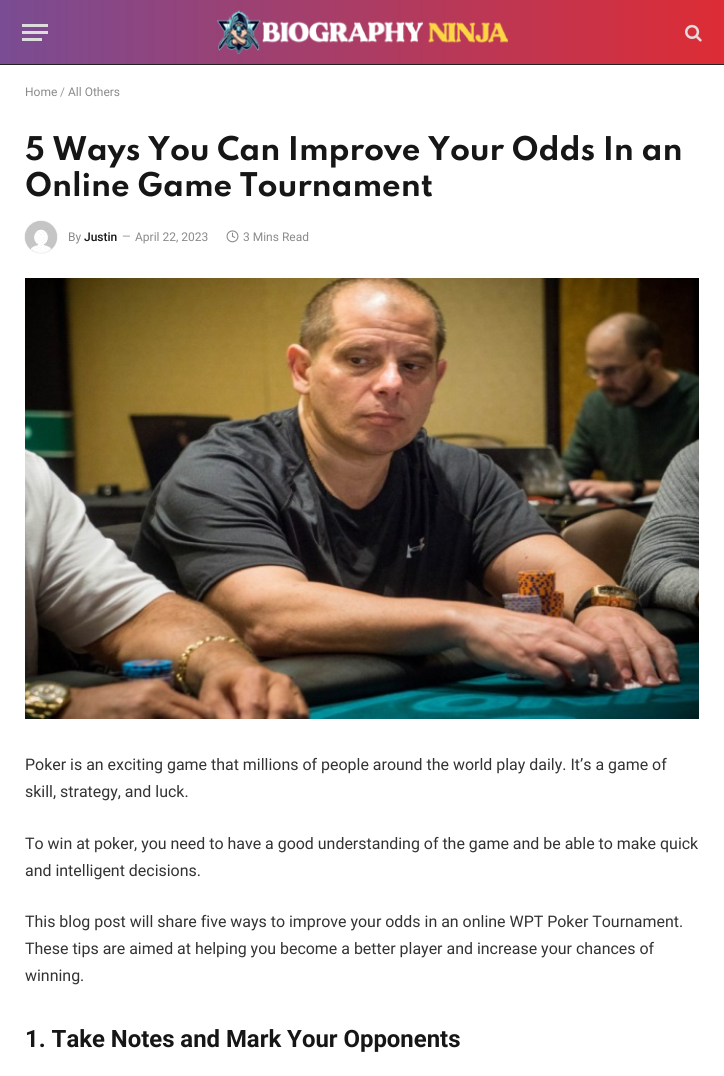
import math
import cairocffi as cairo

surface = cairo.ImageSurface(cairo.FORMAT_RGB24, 724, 1076)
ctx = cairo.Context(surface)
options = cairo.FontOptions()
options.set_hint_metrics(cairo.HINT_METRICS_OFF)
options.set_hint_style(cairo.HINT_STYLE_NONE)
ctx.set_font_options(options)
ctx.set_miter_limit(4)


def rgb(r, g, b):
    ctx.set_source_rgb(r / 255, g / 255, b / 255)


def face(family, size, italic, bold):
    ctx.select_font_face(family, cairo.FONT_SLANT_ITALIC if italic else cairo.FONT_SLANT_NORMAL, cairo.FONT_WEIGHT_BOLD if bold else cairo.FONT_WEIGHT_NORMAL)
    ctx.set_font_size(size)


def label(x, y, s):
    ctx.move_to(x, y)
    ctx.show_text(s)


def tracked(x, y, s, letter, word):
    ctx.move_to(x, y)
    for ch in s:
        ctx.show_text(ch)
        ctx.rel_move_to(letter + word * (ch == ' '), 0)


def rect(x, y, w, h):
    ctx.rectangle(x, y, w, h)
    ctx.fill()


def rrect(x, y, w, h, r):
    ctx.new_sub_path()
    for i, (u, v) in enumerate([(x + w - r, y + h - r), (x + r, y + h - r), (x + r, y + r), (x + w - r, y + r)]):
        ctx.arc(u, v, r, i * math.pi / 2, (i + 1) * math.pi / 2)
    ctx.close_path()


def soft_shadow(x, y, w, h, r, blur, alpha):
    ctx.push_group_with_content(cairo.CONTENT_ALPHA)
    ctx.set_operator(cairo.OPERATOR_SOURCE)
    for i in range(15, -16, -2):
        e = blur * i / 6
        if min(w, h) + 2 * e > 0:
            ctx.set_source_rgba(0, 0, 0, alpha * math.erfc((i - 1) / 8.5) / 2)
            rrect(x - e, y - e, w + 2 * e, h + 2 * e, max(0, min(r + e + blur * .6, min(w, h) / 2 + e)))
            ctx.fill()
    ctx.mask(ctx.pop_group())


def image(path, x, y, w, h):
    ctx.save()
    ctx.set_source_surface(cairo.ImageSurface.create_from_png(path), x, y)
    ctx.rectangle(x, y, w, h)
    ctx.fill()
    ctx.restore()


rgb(255, 255, 255)
ctx.paint()
gradient = cairo.LinearGradient(0, 32, 724, 32)
gradient.add_color_stop_rgba(0, 0.475, 0.298, 0.576, 1)
gradient.add_color_stop_rgba(1, 0.867, 0.173, 0.208, 1)
ctx.set_source(gradient)
rect(0, 0, 724, 64)
rgb(34, 34, 34)
rect(0, 64, 724, 1)
rgb(221, 221, 221)
rect(22, 38, 20, 3)
rect(22, 24, 26, 3)
rect(22, 31, 26, 3)
image('image0.png', 217, 10, 292, 44)
image('image1.png', 685, 24, 17, 18)
face('Roboto', 12, 0, 0)
rgb(138, 138, 138)
label(25, 96, 'Home')
rgb(153, 153, 153)
label(60, 96, '/')
rgb(138, 138, 138)
label(68, 96, 'All Others')
face('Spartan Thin', 29, 0, 1)
rgb(22, 22, 22)
tracked(25, 160, '5 Ways You Can Improve Your Odds In an', -0.15, 0)
tracked(25, 196, 'Online Game Tournament', -0.15, 0)
rgb(0, 0, 0)
soft_shadow(25, 221, 32, 32, 16, 0.5, 0.2)
image('image2.png', 25, 221, 32, 32)
face('Roboto', 12, 0, 0)
rgb(138, 138, 138)
label(68, 241, 'By')
face('Roboto Medium', 12, 0, 0)
rgb(22, 22, 22)
label(84, 241, 'Justin')
face('Roboto', 11, 0, 0)
rgb(138, 138, 138)
label(122, 240, '—')
face('Roboto', 12, 0, 0)
label(135, 241, 'April 22, 2023')
image('image3.png', 226, 230, 13, 13)
label(243, 241, '3 Mins Read')
image('image4.png', 25, 278, 674, 441)
face('Roboto', 15.95, 0, 0)
rgb(51, 51, 51)
label(25, 770, 'Poker is an exciting game that millions of people around the world play daily. It’s a game of')
label(25, 797, 'skill, strategy, and luck.')
label(25, 849, 'To win at poker, you need to have a good understanding of the game and be able to make quick')
label(25, 876, 'and intelligent decisions.')
label(25, 927, 'This blog post will share five ways to improve your odds in an online WPT Poker Tournament.')
label(25, 954, 'These tips are aimed at helping you become a better player and increase your chances of')
label(25, 981, 'winning.')
face('Roboto', 23.9, 0, 1)
rgb(22, 22, 22)
label(25, 1047, '1. Take Notes and Mark Your Opponents')
surface.write_to_png('render.png')
